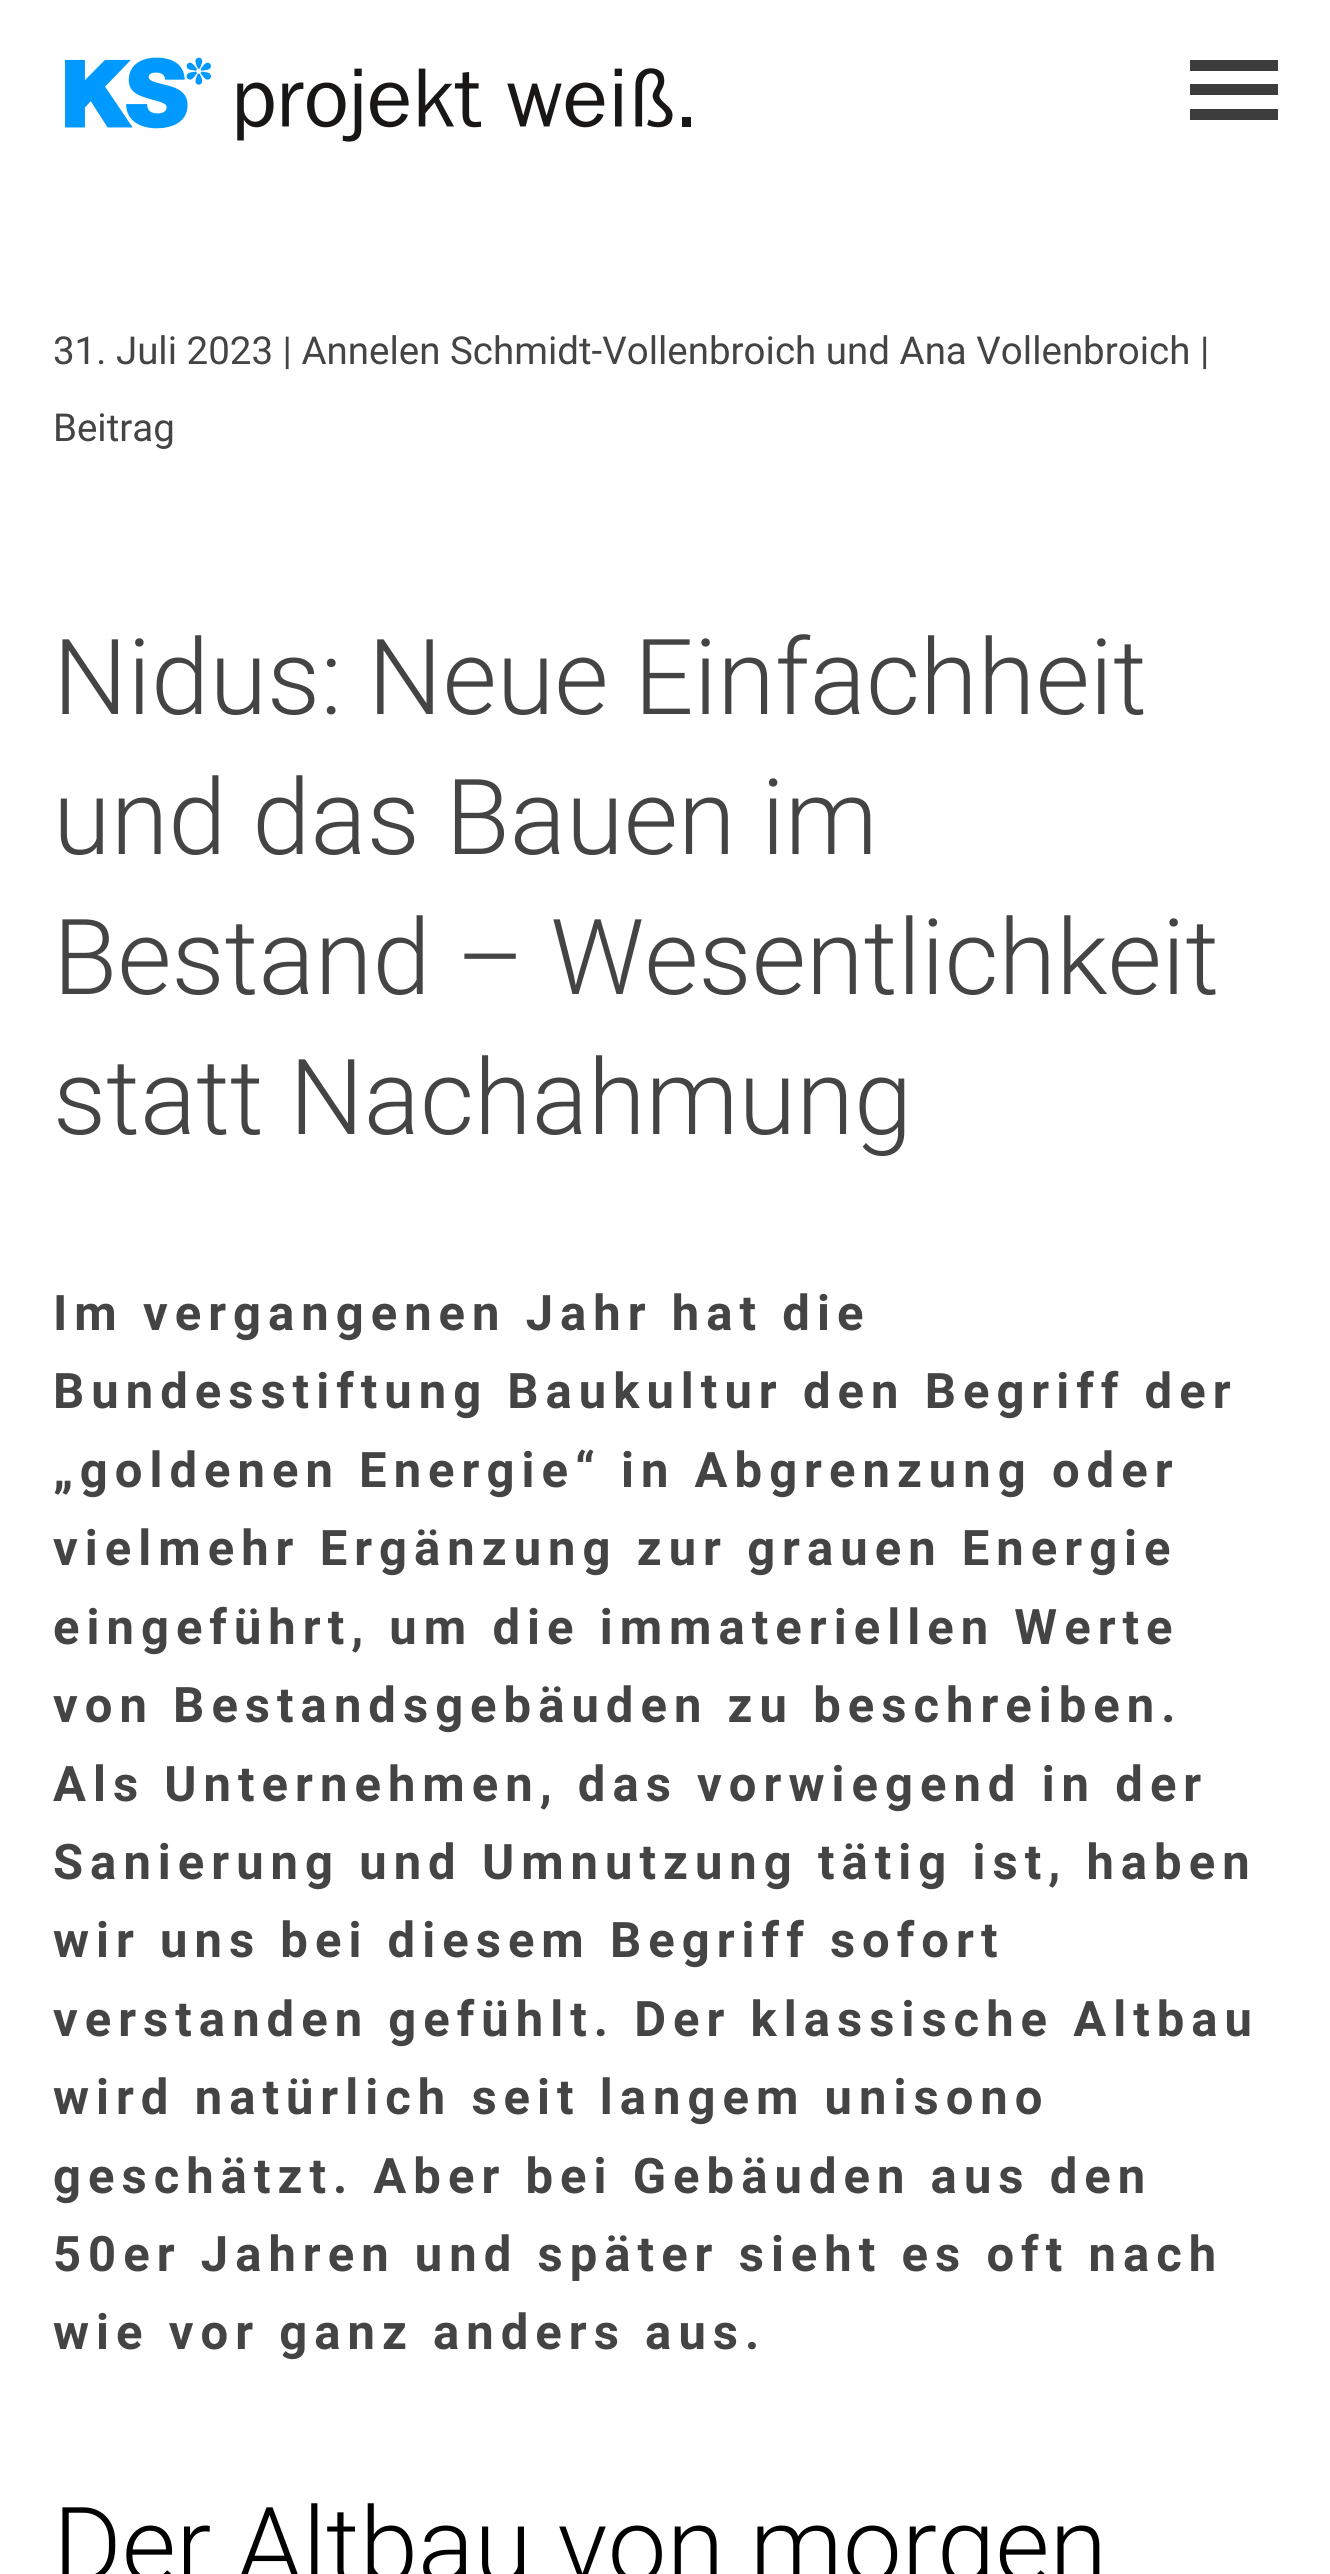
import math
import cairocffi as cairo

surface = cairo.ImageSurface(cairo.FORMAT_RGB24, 1330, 2574)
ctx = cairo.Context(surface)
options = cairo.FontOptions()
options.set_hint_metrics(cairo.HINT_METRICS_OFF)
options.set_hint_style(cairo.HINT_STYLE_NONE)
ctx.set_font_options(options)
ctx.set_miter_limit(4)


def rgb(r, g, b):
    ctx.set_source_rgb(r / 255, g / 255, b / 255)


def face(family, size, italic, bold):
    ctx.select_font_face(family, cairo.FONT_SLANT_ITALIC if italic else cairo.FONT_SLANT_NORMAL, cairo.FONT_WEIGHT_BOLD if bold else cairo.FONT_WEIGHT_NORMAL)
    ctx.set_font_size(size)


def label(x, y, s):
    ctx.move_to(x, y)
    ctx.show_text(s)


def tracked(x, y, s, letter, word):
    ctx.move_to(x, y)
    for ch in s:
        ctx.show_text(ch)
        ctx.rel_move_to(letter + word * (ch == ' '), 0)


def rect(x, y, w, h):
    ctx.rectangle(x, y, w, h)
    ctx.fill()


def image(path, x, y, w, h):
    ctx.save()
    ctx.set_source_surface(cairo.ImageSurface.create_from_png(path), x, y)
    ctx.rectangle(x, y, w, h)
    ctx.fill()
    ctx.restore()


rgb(255, 255, 255)
ctx.paint()
image('image0.png', 65, 57, 626, 85)
rgb(60, 60, 60)
rect(1190, 60, 88, 11)
rect(1190, 84, 88, 11)
rect(1190, 109, 88, 11)
face('Roboto', 38.5, 0, 0)
rgb(68, 68, 68)
label(53, 364, '31. Juli 2023 | Annelen Schmidt-Vollenbroich und Ana Vollenbroich |')
label(53, 441, 'Beitrag')
face('Roboto Light', 105, 0, 0)
label(53, 714, 'Nidus: Neue Einfachheit')
label(53, 854, 'und das Bauen im')
label(53, 994, 'Bestand – Wesentlichkeit')
label(53, 1134, 'statt Nachahmung')
face('Roboto', 49, 0, 1)
tracked(53, 1330, 'Im vergangenen Jahr hat die', 7, 0)
tracked(53, 1408, 'Bundesstiftung Baukultur den Begriff der', 7, 0)
tracked(53, 1487, '„goldenen Energie“ in Abgrenzung oder', 7, 0)
tracked(53, 1565, 'vielmehr Ergänzung zur grauen Energie', 7, 0)
tracked(53, 1644, 'eingeführt, um die immateriellen Werte', 7, 0)
tracked(53, 1722, 'von Bestandsgebäuden zu beschreiben.', 7, 0)
tracked(53, 1801, 'Als Unternehmen, das vorwiegend in der', 7, 0)
tracked(53, 1879, 'Sanierung und Umnutzung tätig ist, haben', 7, 0)
tracked(53, 1957, 'wir uns bei diesem Begriff sofort', 7, 0)
tracked(53, 2036, 'verstanden gefühlt. Der klassische Altbau', 7, 0)
tracked(53, 2114, 'wird natürlich seit langem unisono', 7, 0)
tracked(53, 2193, 'geschätzt. Aber bei Gebäuden aus den', 7, 0)
tracked(53, 2271, '50er Jahren und später sieht es oft nach', 7, 0)
tracked(53, 2349, 'wie vor ganz anders aus.', 7, 0)
face('Roboto Light', 105, 0, 0)
rgb(1, 1, 1)
label(53, 2582, 'Der Altbau von morgen')
surface.write_to_png('render.png')
